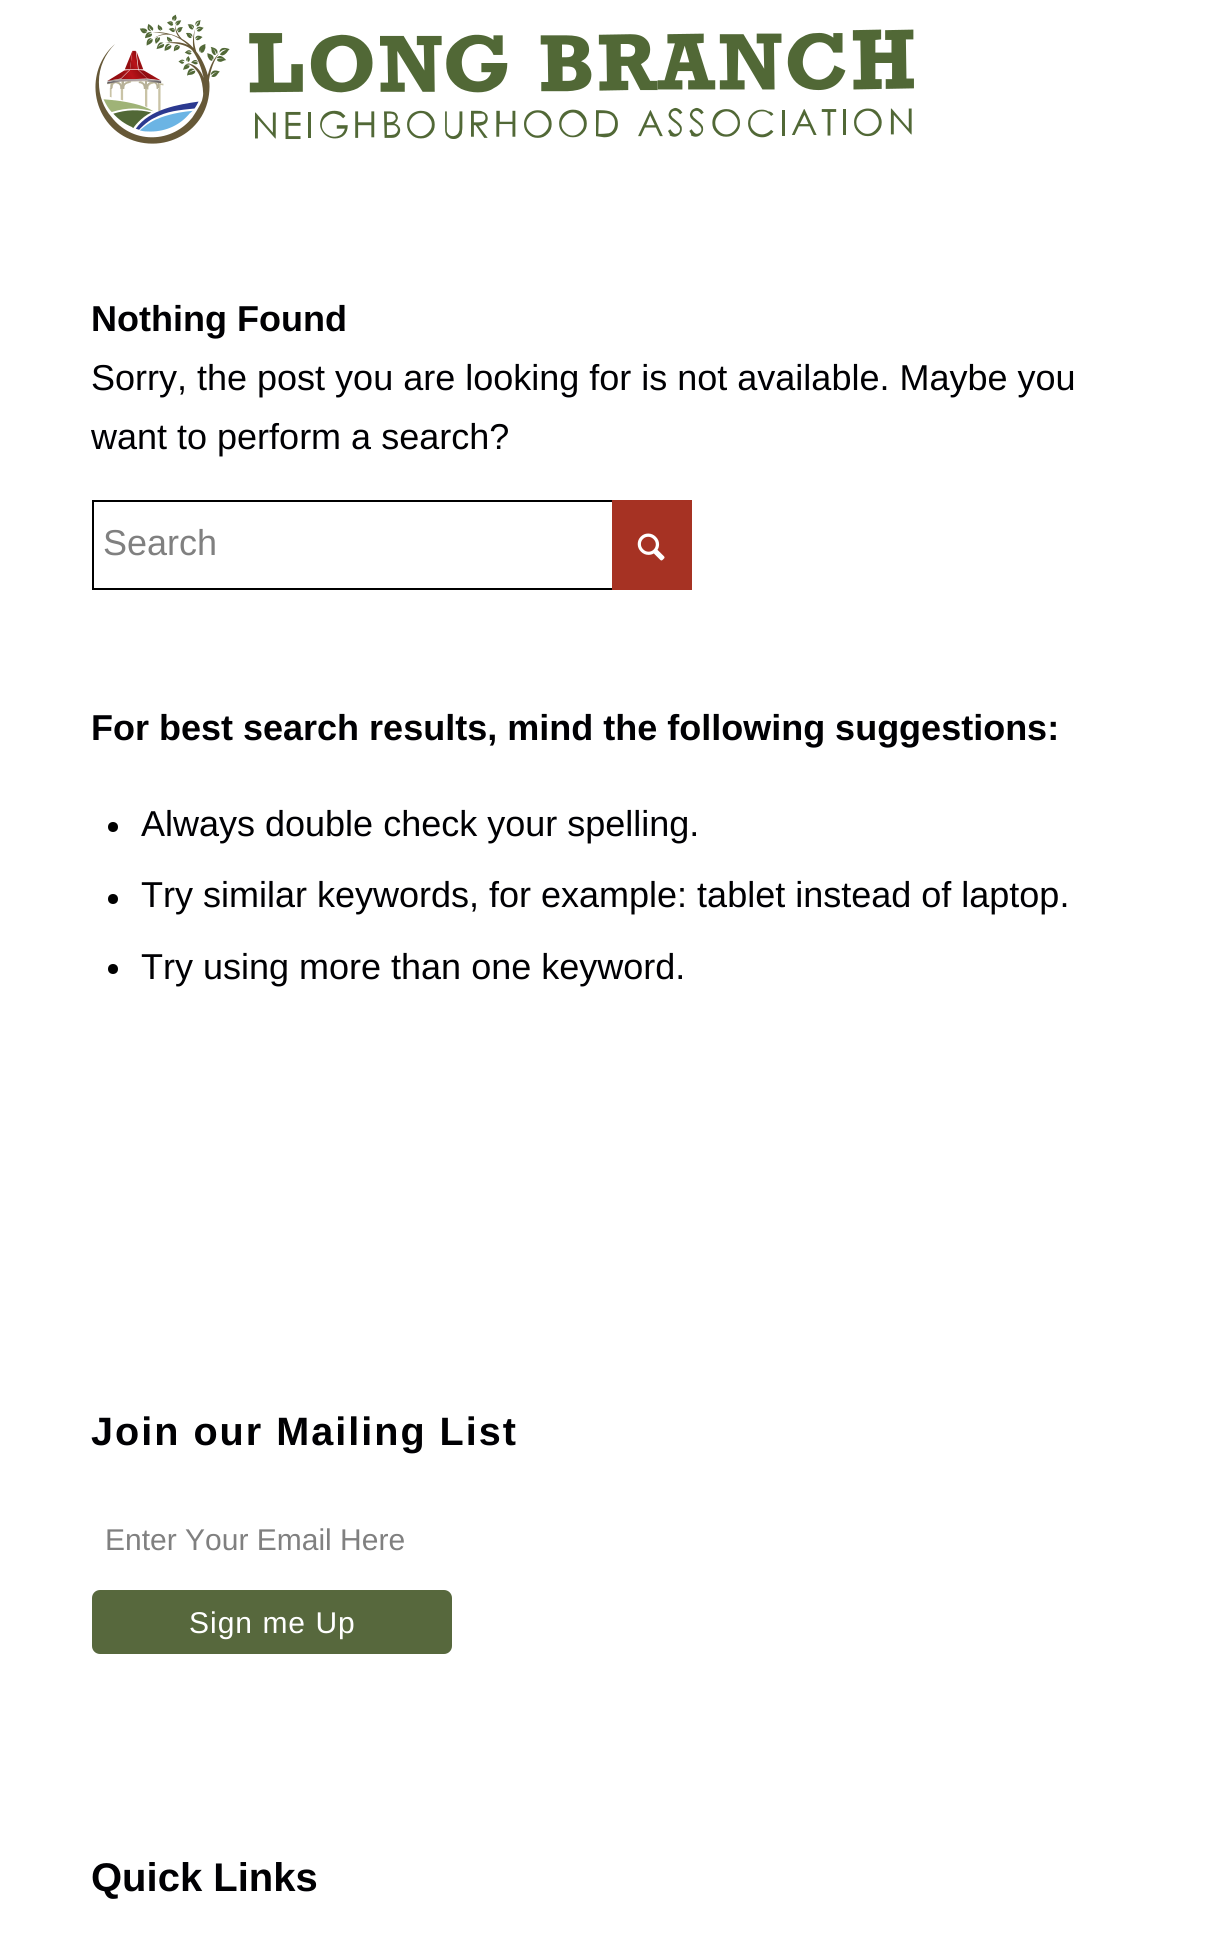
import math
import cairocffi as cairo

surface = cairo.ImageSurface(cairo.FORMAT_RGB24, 1213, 1933)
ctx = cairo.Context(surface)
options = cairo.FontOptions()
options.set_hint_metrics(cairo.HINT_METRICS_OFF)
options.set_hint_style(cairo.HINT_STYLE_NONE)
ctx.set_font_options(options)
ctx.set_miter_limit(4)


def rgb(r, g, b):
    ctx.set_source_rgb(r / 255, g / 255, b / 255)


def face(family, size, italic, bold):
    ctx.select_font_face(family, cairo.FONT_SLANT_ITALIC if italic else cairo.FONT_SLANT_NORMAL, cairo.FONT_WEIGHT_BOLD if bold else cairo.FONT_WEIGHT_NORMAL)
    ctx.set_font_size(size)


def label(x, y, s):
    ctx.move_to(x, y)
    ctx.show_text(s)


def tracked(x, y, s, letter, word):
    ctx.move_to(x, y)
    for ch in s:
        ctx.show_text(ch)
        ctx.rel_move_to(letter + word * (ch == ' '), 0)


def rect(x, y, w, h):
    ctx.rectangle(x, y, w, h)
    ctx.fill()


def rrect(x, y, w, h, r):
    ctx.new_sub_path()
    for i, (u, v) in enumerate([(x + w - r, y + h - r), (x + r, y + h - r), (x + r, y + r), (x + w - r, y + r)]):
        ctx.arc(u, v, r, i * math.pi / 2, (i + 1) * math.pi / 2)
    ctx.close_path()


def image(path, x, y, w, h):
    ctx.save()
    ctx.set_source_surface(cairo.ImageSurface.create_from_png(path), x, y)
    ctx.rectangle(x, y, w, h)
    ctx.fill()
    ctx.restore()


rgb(255, 255, 255)
ctx.paint()
image('image0.png', 95, 14, 819, 130)
face('Liberation Sans', 36, 0, 1)
rgb(0, 0, 3)
label(91, 331, 'Nothing Found')
face('Liberation Sans', 36, 0, 0)
label(91, 390, 'Sorry, the post you are looking for is not available. Maybe you')
label(91, 449, 'want to perform a search?')
ctx.rectangle(93, 501, 598, 88)
rgb(0, 0, 0)
ctx.stroke()
rgb(128, 128, 128)
label(103, 555, 'Search')
rgb(166, 50, 35)
rect(612, 500, 80, 90)
image('image1.png', 637, 533, 28, 28)
face('Liberation Sans', 36, 0, 1)
rgb(0, 0, 3)
label(91, 740, 'For best search results, mind the following suggestions:')
rgb(0, 0, 0)
ctx.new_path()
ctx.arc(113, 827, 5, 0, 2 * math.pi)
ctx.fill()
face('Liberation Sans', 36, 0, 0)
rgb(0, 0, 3)
label(141, 836, 'Always double check your spelling.')
rgb(0, 0, 0)
ctx.new_path()
ctx.arc(113, 899, 5, 0, 2 * math.pi)
ctx.fill()
rgb(0, 0, 3)
label(141, 907, 'Try similar keywords, for example: tablet instead of laptop.')
rgb(0, 0, 0)
ctx.new_path()
ctx.arc(113, 969, 5, 0, 2 * math.pi)
ctx.fill()
rgb(0, 0, 3)
label(141, 979, 'Try using more than one keyword.')
face('Liberation Sans', 39.6, 0, 1)
tracked(91, 1445, 'Join our Mailing List', 2, 0)
face('Liberation Sans', 30, 0, 0)
rgb(128, 128, 128)
label(105, 1550, 'Enter Your Email Here')
rgb(87, 104, 61)
rrect(92, 1590, 360, 64, 8)
ctx.fill()
rgb(255, 255, 255)
tracked(189, 1633, 'Sign me Up', 1, 0)
face('Liberation Sans', 40, 0, 1)
rgb(0, 0, 3)
label(91, 1891, 'Quick Links')
surface.write_to_png('render.png')
